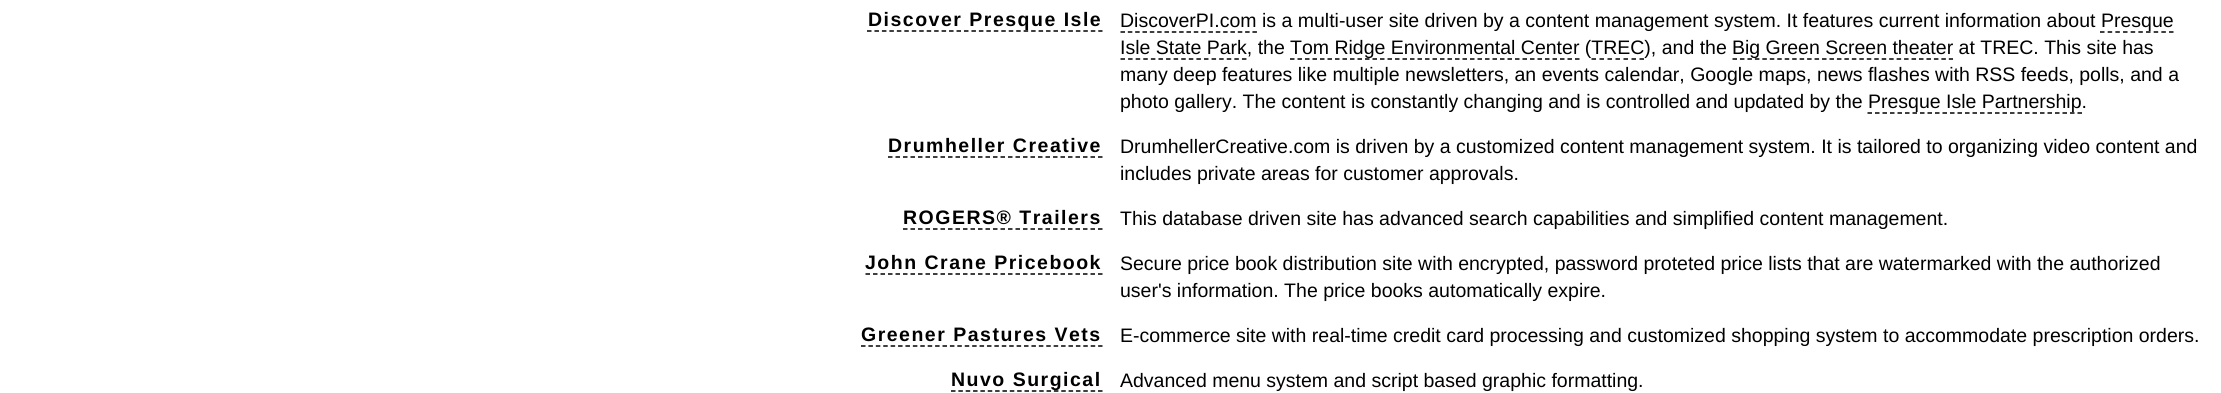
import math
import cairocffi as cairo

surface = cairo.ImageSurface(cairo.FORMAT_RGB24, 2221, 393)
ctx = cairo.Context(surface)
options = cairo.FontOptions()
options.set_hint_metrics(cairo.HINT_METRICS_OFF)
options.set_hint_style(cairo.HINT_STYLE_NONE)
ctx.set_font_options(options)
ctx.set_miter_limit(4)


def rgb(r, g, b):
    ctx.set_source_rgb(r / 255, g / 255, b / 255)


def face(family, size, italic, bold):
    ctx.select_font_face(family, cairo.FONT_SLANT_ITALIC if italic else cairo.FONT_SLANT_NORMAL, cairo.FONT_WEIGHT_BOLD if bold else cairo.FONT_WEIGHT_NORMAL)
    ctx.set_font_size(size)


def label(x, y, s):
    ctx.move_to(x, y)
    ctx.show_text(s)


def tracked(x, y, s, letter, word):
    ctx.move_to(x, y)
    for ch in s:
        ctx.show_text(ch)
        ctx.rel_move_to(letter + word * (ch == ' '), 0)


rgb(255, 255, 255)
ctx.paint()
ctx.new_path()
ctx.move_to(867, 31)
ctx.line_to(1102.5, 31)
rgb(0, 0, 0)
ctx.set_line_width(1.5)
ctx.set_dash([4.5, 2.96])
ctx.stroke()
face('Liberation Sans', 19.5, 0, 1)
tracked(868, 26, 'Discover Presque Isle', 1.5, 0)
ctx.new_path()
ctx.move_to(1120.5, 32)
ctx.line_to(1257, 32)
ctx.set_dash([4.5, 2.83])
ctx.stroke()
face('Liberation Sans', 19.5, 0, 0)
label(1120, 27, 'DiscoverPI.com is a multi-user site driven by a content management system. It features current information about')
ctx.new_path()
ctx.move_to(2100, 32)
ctx.line_to(2173.5, 32)
ctx.set_dash([4.5, 3.17])
ctx.stroke()
label(2101, 27, 'Presque')
label(1120, 54, 'Isle State Park, the')
ctx.new_path()
ctx.move_to(1120.5, 59)
ctx.line_to(1246.5, 59)
ctx.set_dash([4.5, 3.09])
ctx.stroke()
ctx.new_path()
ctx.move_to(1290, 59)
ctx.line_to(1579.5, 59)
ctx.set_dash([4.5, 3])
ctx.stroke()
label(1290, 54, 'Tom Ridge Environmental Center (TREC), and the')
ctx.new_path()
ctx.move_to(1732.5, 59)
ctx.line_to(1953, 59)
ctx.set_dash([4.5, 2.96])
ctx.stroke()
label(1732, 54, 'Big Green Screen theater at TREC. This site has')
ctx.new_path()
ctx.move_to(1591.5, 59)
ctx.line_to(1644, 59)
ctx.set_dash([4.5, 3.5])
ctx.stroke()
label(1120, 81, 'many deep features like multiple newsletters, an events calendar, Google maps, news flashes with RSS feeds, polls, and a')
label(1120, 108, 'photo gallery. The content is constantly changing and is controlled and updated by the')
ctx.new_path()
ctx.move_to(1867.5, 113)
ctx.line_to(2082, 113)
ctx.set_dash([4.5, 3])
ctx.stroke()
label(1868, 108, 'Presque Isle Partnership.')
face('Liberation Sans', 19.5, 0, 1)
tracked(888, 152, 'Drumheller Creative', 1.5, 0)
ctx.new_path()
ctx.move_to(888, 157)
ctx.line_to(1102.5, 157)
ctx.stroke()
face('Liberation Sans', 19.5, 0, 0)
label(1120, 153, 'DrumhellerCreative.com is driven by a customized content management system. It is tailored to organizing video content and')
label(1120, 180, 'includes private areas for customer approvals.')
face('Liberation Sans', 19.5, 0, 1)
tracked(903, 224, 'ROGERS® Trailers', 1.5, 0)
ctx.new_path()
ctx.move_to(903, 229)
ctx.line_to(1102.5, 229)
ctx.stroke()
face('Liberation Sans', 19.5, 0, 0)
label(1120, 225, 'This database driven site has advanced search capabilities and simplified content management.')
face('Liberation Sans', 19.5, 0, 1)
tracked(865, 269, 'John Crane Pricebook', 1.5, 0)
ctx.new_path()
ctx.move_to(865.5, 274)
ctx.line_to(1102.5, 274)
ctx.stroke()
face('Liberation Sans', 19.5, 0, 0)
label(1120, 270, 'Secure price book distribution site with encrypted, password proteted price lists that are watermarked with the authorized')
label(1120, 297, 'user\'s information. The price books automatically expire.')
face('Liberation Sans', 19.5, 0, 1)
tracked(861, 341, 'Greener Pastures Vets', 1.5, 0)
ctx.new_path()
ctx.move_to(861, 346)
ctx.line_to(1102.5, 346)
ctx.set_dash([4.5, 2.91])
ctx.stroke()
face('Liberation Sans', 19.5, 0, 0)
label(1120, 342, 'E-commerce site with real-time credit card processing and customized shopping system to accommodate prescription orders.')
ctx.new_path()
ctx.move_to(951, 391)
ctx.line_to(1102.5, 391)
ctx.set_dash([4.5, 2.85])
ctx.stroke()
face('Liberation Sans', 19.5, 0, 1)
tracked(951, 386, 'Nuvo Surgical', 1.5, 0)
face('Liberation Sans', 19.5, 0, 0)
label(1120, 387, 'Advanced menu system and script based graphic formatting.')
surface.write_to_png('render.png')
